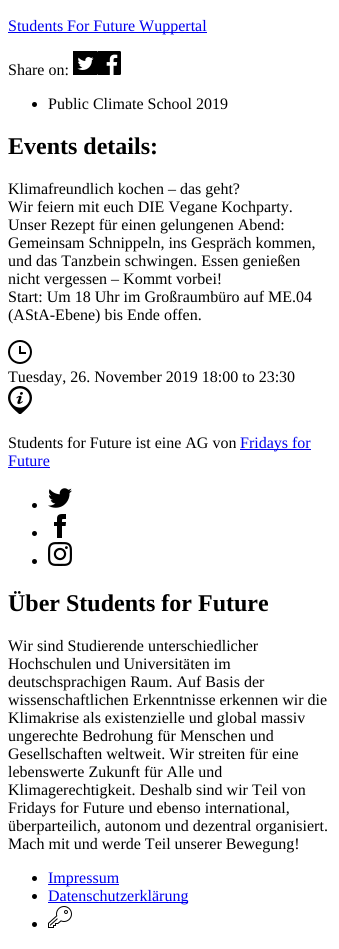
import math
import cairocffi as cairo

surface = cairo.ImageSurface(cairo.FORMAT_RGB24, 339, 949)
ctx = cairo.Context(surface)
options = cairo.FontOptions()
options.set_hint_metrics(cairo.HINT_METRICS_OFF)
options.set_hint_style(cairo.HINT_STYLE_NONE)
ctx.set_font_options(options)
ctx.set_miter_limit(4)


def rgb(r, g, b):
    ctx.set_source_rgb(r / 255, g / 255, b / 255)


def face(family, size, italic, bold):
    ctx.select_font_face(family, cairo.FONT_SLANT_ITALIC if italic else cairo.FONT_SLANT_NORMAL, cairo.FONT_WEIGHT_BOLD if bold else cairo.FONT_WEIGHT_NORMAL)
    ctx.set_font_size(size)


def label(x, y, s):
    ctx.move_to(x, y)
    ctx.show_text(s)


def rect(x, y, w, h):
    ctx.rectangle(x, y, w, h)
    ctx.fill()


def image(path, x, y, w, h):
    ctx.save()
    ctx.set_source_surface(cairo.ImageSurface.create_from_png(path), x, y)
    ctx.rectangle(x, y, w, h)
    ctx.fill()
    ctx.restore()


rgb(255, 255, 255)
ctx.paint()
rgb(0, 0, 238)
rect(8, 32, 199, 1)
face('Liberation Serif', 16, 0, 0)
label(8, 31, 'Students For Future Wuppertal')
rgb(0, 0, 0)
label(8, 75, 'Share on:')
image('image0.png', 73, 51, 24, 24)
image('image1.png', 97, 51, 24, 24)
ctx.arc(34.5, 104.5, 2.5, 0, 2 * math.pi)
ctx.fill()
label(48, 109, 'Public Climate School 2019')
face('Liberation Serif', 24, 0, 1)
label(8, 154, 'Events details:')
face('Liberation Serif', 16, 0, 0)
label(8, 194, 'Klimafreundlich kochen – das geht?')
label(8, 212, 'Wir feiern mit euch DIE Vegane Kochparty.')
label(8, 230, 'Unser Rezept für einen gelungenen Abend:')
label(8, 248, 'Gemeinsam Schnippeln, ins Gespräch kommen,')
label(8, 266, 'und das Tanzbein schwingen. Essen genießen')
label(8, 284, 'nicht vergessen – Kommt vorbei!')
label(8, 302, 'Start: Um 18 Uhr im Großraumbüro auf ME.04')
label(8, 320, '(AStA-Ebene) bis Ende offen.')
image('image2.png', 8, 340, 24, 24)
label(8, 382, 'Tuesday, 26. November 2019 18:00 to 23:30')
image('image3.png', 8, 386, 24, 28)
label(8, 448, 'Students for Future ist eine AG von')
rgb(0, 0, 238)
rect(240, 449, 71, 1)
label(240, 448, 'Fridays for')
label(8, 466, 'Future')
rect(8, 467, 42, 1)
rgb(0, 0, 0)
ctx.new_path()
ctx.arc(34.5, 505.5, 2.5, 0, 2 * math.pi)
ctx.fill()
image('image4.png', 48, 488, 24, 20)
ctx.arc(34.5, 533.5, 2.5, 0, 2 * math.pi)
ctx.fill()
image('image5.png', 54, 514, 12, 24)
ctx.arc(34.5, 561.5, 2.5, 0, 2 * math.pi)
ctx.fill()
image('image6.png', 48, 542, 24, 24)
face('Liberation Serif', 24, 0, 1)
label(8, 611, 'Über Students for Future')
face('Liberation Serif', 16, 0, 0)
label(8, 651, 'Wir sind Studierende unterschiedlicher')
label(8, 669, 'Hochschulen und Universitäten im')
label(8, 687, 'deutschsprachigen Raum. Auf Basis der')
label(8, 705, 'wissenschaftlichen Erkenntnisse erkennen wir die')
label(8, 723, 'Klimakrise als existenzielle und global massiv')
label(8, 741, 'ungerechte Bedrohung für Menschen und')
label(8, 759, 'Gesellschaften weltweit. Wir streiten für eine')
label(8, 777, 'lebenswerte Zukunft für Alle und')
label(8, 795, 'Klimagerechtigkeit. Deshalb sind wir Teil von')
label(8, 813, 'Fridays for Future und ebenso international,')
label(8, 831, 'überparteilich, autonom und dezentral organisiert.')
label(8, 849, 'Mach mit und werde Teil unserer Bewegung!')
ctx.new_path()
ctx.arc(34.5, 878.5, 2.5, 0, 2 * math.pi)
ctx.fill()
rgb(0, 0, 238)
rect(48, 884, 71, 1)
label(48, 883, 'Impressum')
rgb(0, 0, 0)
ctx.new_path()
ctx.arc(34.5, 896.5, 2.5, 0, 2 * math.pi)
ctx.fill()
rgb(0, 0, 238)
rect(48, 902, 140, 1)
label(48, 901, 'Datenschutzerklärung')
rgb(0, 0, 0)
ctx.new_path()
ctx.arc(34.5, 924.5, 2.5, 0, 2 * math.pi)
ctx.fill()
image('image7.png', 48, 906, 24, 22)
surface.write_to_png('render.png')
